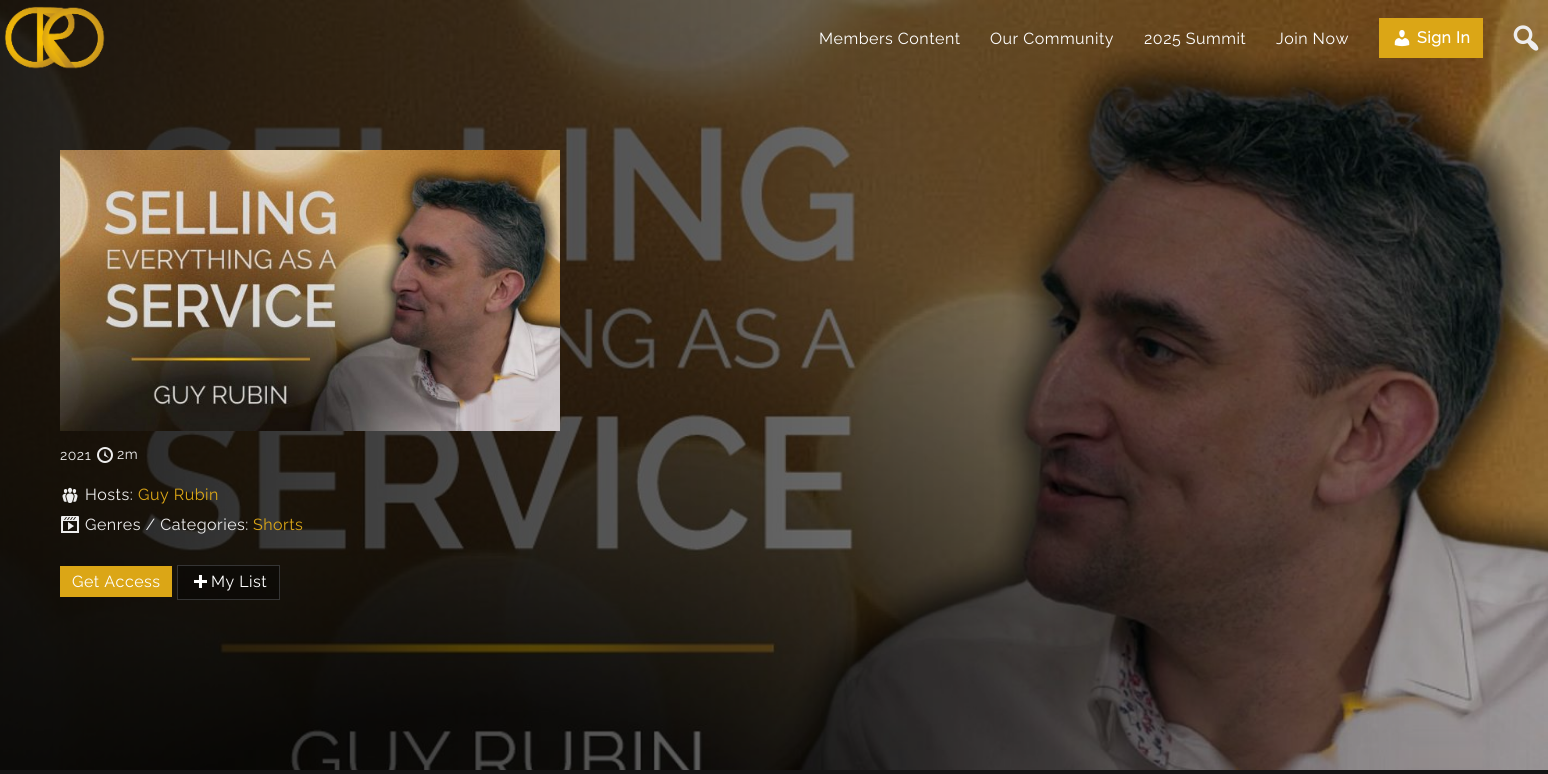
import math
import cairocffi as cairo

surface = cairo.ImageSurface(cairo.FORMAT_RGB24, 1548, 774)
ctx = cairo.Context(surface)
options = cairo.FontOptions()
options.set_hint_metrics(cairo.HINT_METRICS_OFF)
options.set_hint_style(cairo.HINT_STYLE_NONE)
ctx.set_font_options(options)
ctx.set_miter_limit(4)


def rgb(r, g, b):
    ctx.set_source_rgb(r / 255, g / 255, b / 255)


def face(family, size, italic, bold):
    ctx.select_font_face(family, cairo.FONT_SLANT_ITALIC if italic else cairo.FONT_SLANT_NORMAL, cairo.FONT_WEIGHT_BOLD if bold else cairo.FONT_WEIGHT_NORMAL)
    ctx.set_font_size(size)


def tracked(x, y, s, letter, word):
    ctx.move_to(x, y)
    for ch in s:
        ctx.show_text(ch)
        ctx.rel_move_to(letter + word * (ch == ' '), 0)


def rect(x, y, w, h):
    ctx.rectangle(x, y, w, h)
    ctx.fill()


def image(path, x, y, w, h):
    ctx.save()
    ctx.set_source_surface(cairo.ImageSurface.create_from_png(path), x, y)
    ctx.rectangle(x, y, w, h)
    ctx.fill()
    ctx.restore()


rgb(20, 20, 20)
ctx.paint()
image('image3.png', 0, 0, 1548, 770)
image('image0.png', 4, 6, 101, 63)
face('Raleway Thin', 16, 0, 0)
rgb(255, 255, 255)
tracked(819, 44, 'Members Content', 0.5, 0)
tracked(990, 44, 'Our Community', 0.5, 0)
tracked(1144, 44, '2025 Summit', 0.5, 0)
tracked(1276, 44, 'Join Now', 0.5, 0)
rgb(219, 166, 22)
rect(1379, 18, 104, 40)
image('image1.png', 1394, 30, 16, 17)
face('Raleway', 16, 0, 1)
rgb(255, 255, 255)
tracked(1417, 43, 'Sign In', 0.5, 0)
image('image2.png', 1513, 25, 26, 26)
image('image4.png', 60, 150, 500, 281)
face('Raleway Thin', 14, 0, 0)
rgb(238, 238, 238)
tracked(60, 460, '2021', 0.5, 0)
image('image5.png', 97, 447, 16, 16)
tracked(117, 459, '2m', 0.5, 0)
image('image6.png', 62, 487, 16, 16)
face('Raleway Thin', 16, 0, 0)
tracked(85, 500, 'Hosts:', 0.5, 0)
rgb(219, 166, 22)
tracked(138, 500, 'Guy Rubin', 0.5, 0)
image('image7.png', 61, 516, 18, 17)
rgb(238, 238, 238)
tracked(85, 530, 'Genres / Categories:', 0.5, 0)
rgb(219, 166, 22)
tracked(253, 530, 'Shorts', 0.5, 0)
rect(60, 566, 112, 31)
rgb(255, 255, 255)
tracked(72, 587, 'Get Access', 0.5, 0)
ctx.set_source_rgba(0, 0, 0, 0.4)
ctx.rectangle(177.5, 565.5, 102, 34)
ctx.fill_preserve()
rgb(53, 53, 53)
ctx.set_line_width(1)
ctx.stroke()
image('image8.png', 194, 575, 13, 13)
rgb(255, 255, 255)
tracked(211, 587, 'My List', 0.5, 0)
surface.write_to_png('render.png')
